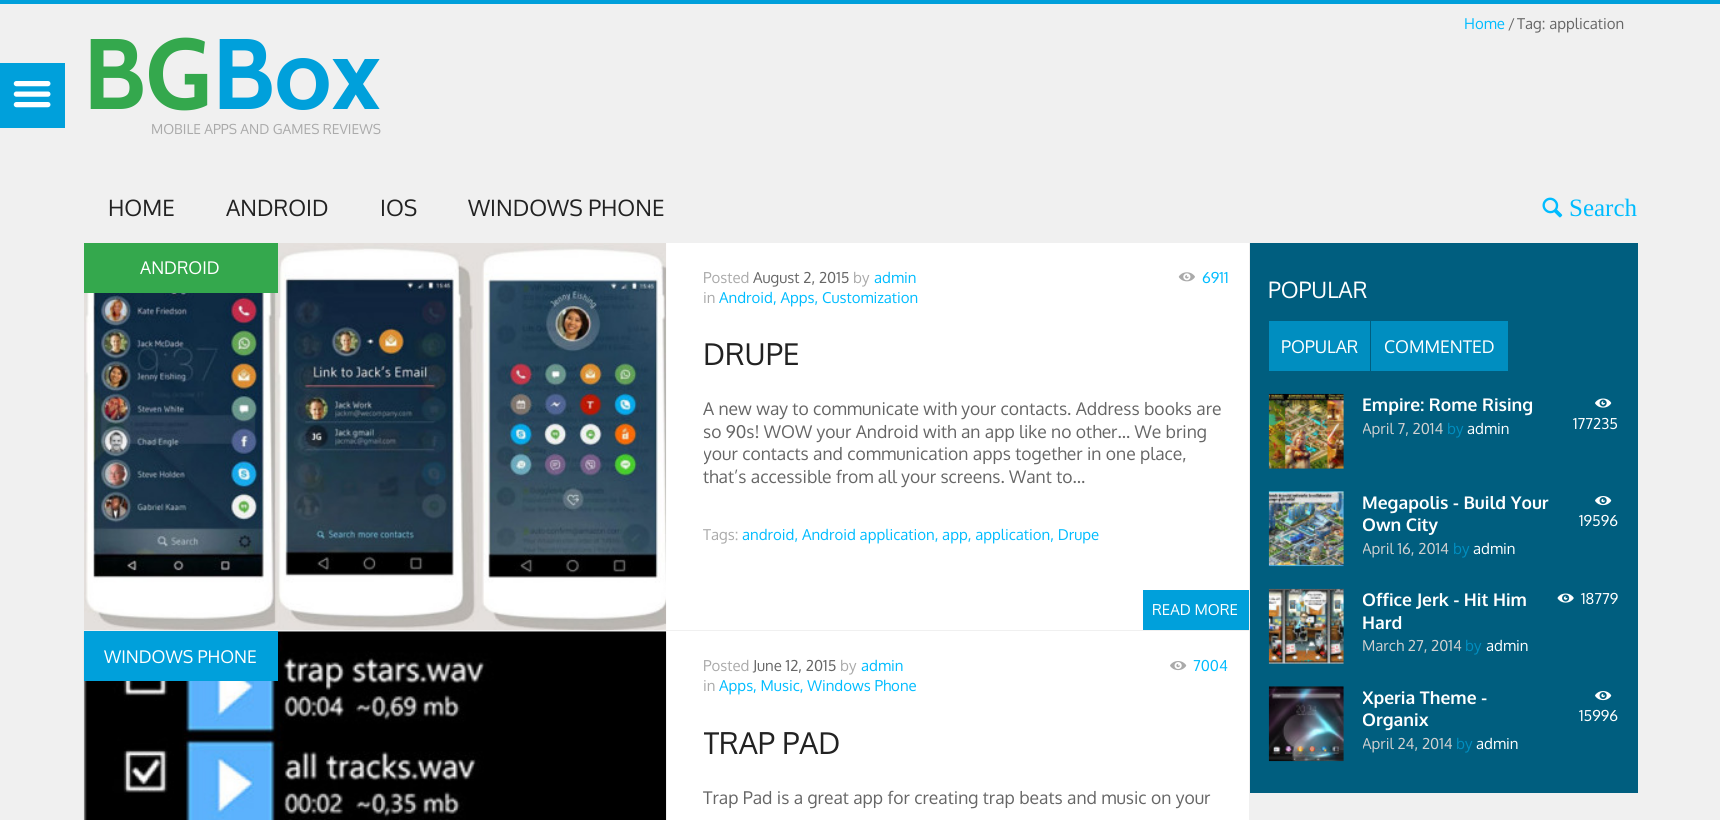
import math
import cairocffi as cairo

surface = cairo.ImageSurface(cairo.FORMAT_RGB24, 1720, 820)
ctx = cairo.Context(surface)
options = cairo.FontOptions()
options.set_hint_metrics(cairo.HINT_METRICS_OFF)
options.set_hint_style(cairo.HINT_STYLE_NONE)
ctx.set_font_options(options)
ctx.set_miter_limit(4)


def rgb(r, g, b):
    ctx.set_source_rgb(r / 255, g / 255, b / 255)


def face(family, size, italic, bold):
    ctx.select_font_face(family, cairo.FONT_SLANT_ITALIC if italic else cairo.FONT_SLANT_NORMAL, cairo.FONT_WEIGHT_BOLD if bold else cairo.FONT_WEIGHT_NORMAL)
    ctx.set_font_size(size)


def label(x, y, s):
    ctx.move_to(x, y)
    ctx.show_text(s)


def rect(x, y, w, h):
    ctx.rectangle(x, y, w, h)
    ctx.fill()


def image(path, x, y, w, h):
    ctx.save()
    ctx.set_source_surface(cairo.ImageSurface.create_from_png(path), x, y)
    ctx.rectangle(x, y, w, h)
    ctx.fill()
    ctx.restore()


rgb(240, 240, 240)
ctx.paint()
rgb(0, 160, 219)
rect(0, 63, 65, 65)
image('image0.png', 13, 81, 38, 27)
rect(0, 0, 1720, 4)
face('Oxygen', 15, 0, 0)
rgb(0, 188, 255)
label(1464, 29, 'Home')
rgb(102, 102, 102)
label(1508, 29, '/')
label(1517, 29, 'Tag: application')
face('Cabin', 100, 0, 1)
rgb(52, 168, 77)
label(83, 109, 'BG')
rgb(0, 160, 219)
label(212, 109, 'Box')
face('Oxygen', 13.75, 0, 0)
rgb(170, 170, 170)
label(151, 134, 'MOBILE APPS AND GAMES REVIEWS')
face('Oxygen', 22.5, 0, 0)
rgb(34, 34, 34)
label(108, 216, 'HOME')
label(226, 216, 'ANDROID')
label(380, 216, 'IOS')
label(468, 216, 'WINDOWS PHONE')
image('image1.png', 1542, 197, 21, 21)
face('Liberation Serif', 25, 0, 0)
rgb(0, 188, 255)
label(1569, 216, 'Search')
rgb(255, 255, 255)
rect(666, 243, 583, 387)
image('image2.png', 84, 243, 583, 387)
rgb(52, 168, 77)
rect(84, 243, 194, 50)
face('Oxygen', 17.5, 0, 0)
rgb(255, 255, 255)
label(140, 274, 'ANDROID')
face('Oxygen', 15, 0, 0)
rgb(170, 170, 170)
label(703, 283, 'Posted')
rgb(102, 102, 102)
label(753, 283, 'August 2, 2015')
rgb(170, 170, 170)
label(853, 283, 'by')
rgb(0, 188, 255)
label(874, 283, 'admin')
image('image3.png', 1178, 272, 17, 10)
label(1202, 283, '6911')
rgb(170, 170, 170)
label(703, 303, 'in')
rgb(0, 188, 255)
label(719, 303, 'Android, Apps, Customization')
face('Oxygen', 30, 0, 0)
rgb(34, 34, 34)
label(703, 365, 'DRUPE')
face('Oxygen', 17.5, 0, 0)
rgb(102, 102, 102)
label(703, 415, 'A new way to communicate with your contacts. Address books are')
label(703, 438, 'so 90s! WOW your Android with an app like no other… We bring')
ctx.save()
ctx.rectangle(704, 243, 545, 340)
ctx.clip()
label(703, 460, 'your contacts and communication apps together in one place,')
ctx.restore()
label(703, 483, 'that’s accessible from all your screens. Want to...')
rgb(0, 160, 219)
rect(1143, 590, 106, 40)
face('Oxygen', 15, 0, 0)
rgb(255, 255, 255)
label(1152, 615, 'READ MORE')
rgb(170, 170, 170)
label(703, 540, 'Tags:')
rgb(0, 188, 255)
label(742, 540, 'android, Android application, app, application, Drupe')
rgb(255, 255, 255)
rect(278, 631, 971, 189)
image('image4.png', 83, 631, 584, 189)
rgb(0, 160, 219)
rect(84, 631, 194, 50)
face('Oxygen', 17.5, 0, 0)
rgb(255, 255, 255)
label(104, 663, 'WINDOWS PHONE')
face('Oxygen', 15, 0, 0)
rgb(170, 170, 170)
label(703, 671, 'Posted')
rgb(102, 102, 102)
label(753, 671, 'June 12, 2015')
rgb(170, 170, 170)
label(840, 671, 'by')
rgb(0, 188, 255)
label(861, 671, 'admin')
image('image5.png', 1170, 661, 17, 10)
label(1193, 671, '7004')
rgb(170, 170, 170)
label(703, 691, 'in')
rgb(0, 188, 255)
label(719, 691, 'Apps, Music, Windows Phone')
ctx.save()
ctx.rectangle(704, 631, 545, 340)
ctx.clip()
face('Oxygen', 30, 0, 0)
rgb(34, 34, 34)
label(703, 754, 'TRAP PAD')
ctx.restore()
face('Oxygen', 17.5, 0, 0)
rgb(102, 102, 102)
label(703, 804, 'Trap Pad is a great app for creating trap beats and music on your')
rgb(0, 94, 127)
rect(1250, 243, 388, 550)
face('Oxygen', 22.5, 0, 0)
rgb(255, 255, 255)
label(1268, 298, 'POPULAR')
rgb(0, 142, 192)
rect(1269, 321, 101, 50)
face('Oxygen', 17.5, 0, 0)
rgb(255, 255, 255)
label(1281, 353, 'POPULAR')
rgb(0, 142, 192)
rect(1371, 321, 137, 50)
rgb(255, 255, 255)
label(1384, 353, 'COMMENTED')
image('image6.png', 1268, 393, 76, 76)
face('Oxygen', 17.5, 0, 1)
label(1362, 411, 'Empire: Rome Rising')
ctx.save()
ctx.rectangle(1363, 394, 256, 45)
ctx.clip()
face('Oxygen', 15, 0, 0)
rgb(208, 208, 208)
label(1362, 434, 'April 7, 2014')
ctx.restore()
face('Oxygen', 15, 0, 0)
rgb(0, 142, 192)
label(1447, 434, 'by')
rgb(255, 255, 255)
label(1467, 434, 'admin')
image('image7.png', 1595, 398, 17, 10)
label(1573, 429, '177235')
image('image8.png', 1268, 491, 76, 76)
face('Oxygen', 17.5, 0, 1)
label(1362, 509, 'Megapolis - Build Your')
ctx.save()
ctx.rectangle(1363, 491, 256, 68)
ctx.clip()
label(1362, 531, 'Own City')
ctx.restore()
image('image9.png', 1595, 496, 17, 10)
face('Oxygen', 15, 0, 0)
label(1579, 526, '19596')
ctx.save()
ctx.rectangle(1363, 491, 256, 68)
ctx.clip()
rgb(208, 208, 208)
label(1362, 554, 'April 16, 2014')
ctx.restore()
rgb(0, 142, 192)
label(1453, 554, 'by')
rgb(255, 255, 255)
label(1473, 554, 'admin')
image('image10.png', 1268, 588, 76, 76)
ctx.save()
ctx.rectangle(1363, 589, 256, 67)
ctx.clip()
face('Oxygen', 17.5, 0, 1)
label(1362, 606, 'Office Jerk - Hit Him')
ctx.restore()
face('Oxygen', 17.5, 0, 1)
label(1362, 629, 'Hard')
image('image11.png', 1557, 593, 17, 10)
face('Oxygen', 15, 0, 0)
label(1581, 604, '18779')
rgb(208, 208, 208)
label(1362, 651, 'March 27, 2014')
rgb(0, 142, 192)
label(1465, 651, 'by')
rgb(255, 255, 255)
label(1486, 651, 'admin')
image('image12.png', 1268, 686, 76, 76)
ctx.save()
ctx.rectangle(1363, 686, 256, 68)
ctx.clip()
face('Oxygen', 17.5, 0, 1)
label(1362, 704, 'Xperia Theme -')
label(1362, 726, 'Organix')
ctx.restore()
image('image9.png', 1595, 691, 17, 10)
label(1579, 721, '15996')
ctx.save()
ctx.rectangle(1363, 686, 256, 68)
ctx.clip()
rgb(208, 208, 208)
label(1362, 749, 'April 24, 2014')
ctx.restore()
rgb(0, 142, 192)
label(1456, 749, 'by')
rgb(255, 255, 255)
label(1476, 749, 'admin')
surface.write_to_png('render.png')
